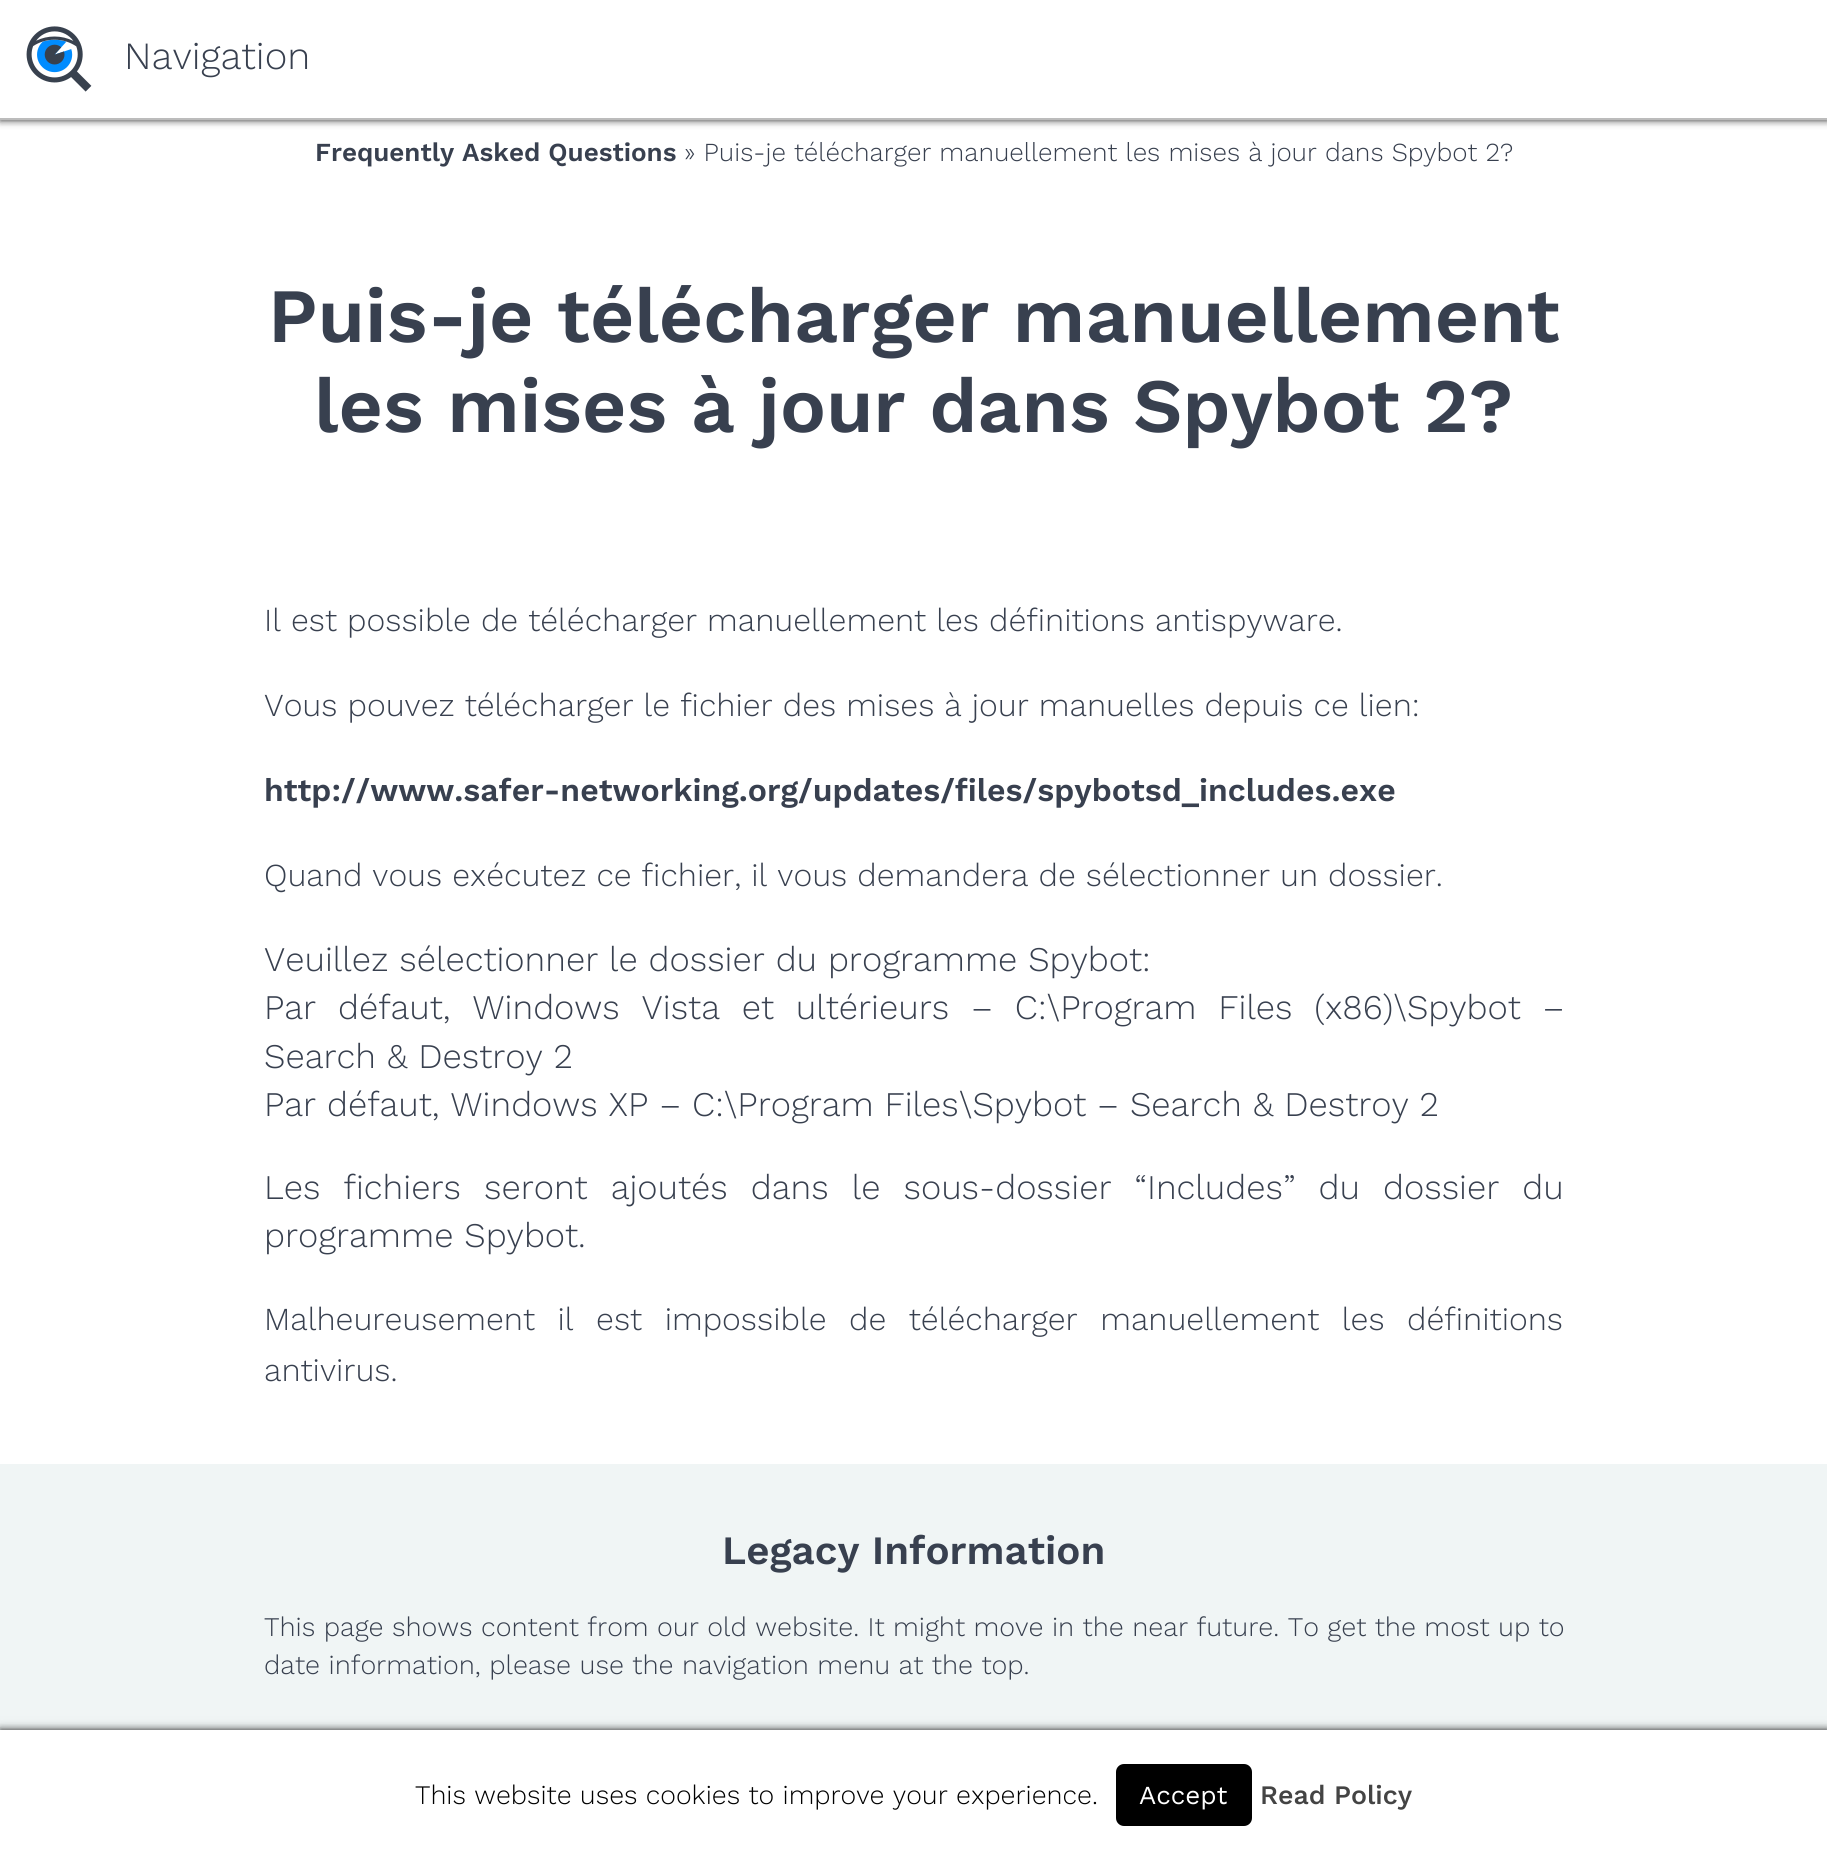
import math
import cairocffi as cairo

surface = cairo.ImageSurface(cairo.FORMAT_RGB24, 1827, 1850)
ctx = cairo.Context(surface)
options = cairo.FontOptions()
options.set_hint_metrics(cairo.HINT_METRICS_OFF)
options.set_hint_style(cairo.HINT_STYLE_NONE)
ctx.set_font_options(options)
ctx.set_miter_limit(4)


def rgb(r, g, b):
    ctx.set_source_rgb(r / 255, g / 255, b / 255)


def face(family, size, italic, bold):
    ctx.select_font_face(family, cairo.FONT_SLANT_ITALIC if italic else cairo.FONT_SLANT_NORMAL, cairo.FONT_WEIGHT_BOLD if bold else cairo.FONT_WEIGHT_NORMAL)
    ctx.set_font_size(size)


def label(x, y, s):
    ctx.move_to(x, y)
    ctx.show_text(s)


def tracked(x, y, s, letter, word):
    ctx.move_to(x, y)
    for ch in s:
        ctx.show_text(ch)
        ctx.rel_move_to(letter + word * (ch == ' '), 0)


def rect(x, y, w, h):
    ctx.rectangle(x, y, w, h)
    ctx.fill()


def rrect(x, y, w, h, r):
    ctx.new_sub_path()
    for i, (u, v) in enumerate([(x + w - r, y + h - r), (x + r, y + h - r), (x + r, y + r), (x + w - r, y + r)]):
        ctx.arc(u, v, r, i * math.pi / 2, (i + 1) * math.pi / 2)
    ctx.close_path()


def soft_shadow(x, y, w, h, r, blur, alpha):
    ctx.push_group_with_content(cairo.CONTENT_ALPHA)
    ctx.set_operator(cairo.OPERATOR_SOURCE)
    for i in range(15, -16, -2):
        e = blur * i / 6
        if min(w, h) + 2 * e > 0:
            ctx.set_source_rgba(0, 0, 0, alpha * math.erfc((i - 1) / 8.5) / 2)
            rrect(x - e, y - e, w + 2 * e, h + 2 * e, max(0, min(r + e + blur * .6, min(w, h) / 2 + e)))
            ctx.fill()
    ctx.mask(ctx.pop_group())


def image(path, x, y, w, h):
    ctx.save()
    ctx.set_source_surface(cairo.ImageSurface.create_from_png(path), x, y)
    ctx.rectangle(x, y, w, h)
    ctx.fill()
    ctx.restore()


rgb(255, 255, 255)
ctx.paint()
rgb(0, 0, 0)
soft_shadow(0, 0, 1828, 120, 0, 4, 0.86)
rgb(255, 255, 255)
rect(0, 0, 1827, 118)
rgb(188, 188, 188)
rect(0, 118, 1827, 2)
image('image0.png', 26, 26, 66, 66)
face('Work Sans Light', 38.5, 0, 0)
rgb(56, 64, 79)
label(124, 69, 'Navigation')
face('Work Sans SemiBold', 26, 0, 0)
label(315, 161, 'Frequently Asked Questions')
face('Work Sans Light', 26, 0, 0)
label(684, 161, '» Puis-je télécharger manuellement les mises à jour dans Spybot 2?')
face('Work Sans SemiBold', 76.75, 0, 0)
label(268, 342, 'Puis-je télécharger manuellement')
label(314, 432, 'les mises à jour dans Spybot 2?')
face('Work Sans Light', 32, 0, 0)
label(264, 631, 'Il est possible de télécharger manuellement les définitions antispyware.')
label(264, 716, 'Vous pouvez télécharger le fichier des mises à jour manuelles depuis ce lien:')
face('Work Sans SemiBold', 32, 0, 0)
label(264, 801, 'http://www.safer-networking.org/updates/files/spybotsd_includes.exe')
face('Work Sans Light', 32, 0, 0)
label(264, 886, 'Quand vous exécutez ce fichier, il vous demandera de sélectionner un dossier.')
face('Work Sans Light', 34.55, 0, 0)
label(264, 971, 'Veuillez sélectionner le dossier du programme Spybot:')
tracked(264, 1019, 'Par défaut, Windows Vista et ultérieurs – C:\\Program Files (x86)\\Spybot –', 0, 11)
label(264, 1068, 'Search & Destroy 2')
label(264, 1116, 'Par défaut, Windows XP – C:\\Program Files\\Spybot – Search & Destroy 2')
tracked(264, 1199, 'Les fichiers seront ajoutés dans le sous-dossier “Includes” du dossier du', 0, 12.25)
label(264, 1247, 'programme Spybot.')
face('Work Sans Light', 32, 0, 0)
tracked(264, 1330, 'Malheureusement il est impossible de télécharger manuellement les définitions', 0, 12.5)
label(264, 1381, 'antivirus.')
rgb(240, 245, 245)
rect(0, 1464, 1827, 266)
face('Work Sans SemiBold', 40.25, 0, 0)
rgb(56, 64, 79)
label(722, 1564, 'Legacy Information')
face('Work Sans Light', 26.9, 0, 0)
label(264, 1636, 'This page shows content from our old website. It might move in the near future. To get the most up to')
label(264, 1674, 'date information, please use the navigation menu at the top.')
rgb(0, 0, 0)
soft_shadow(0, 1734, 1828, 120, 0, 10, 0.12)
soft_shadow(0, 1730, 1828, 120, 0, 4, 0.86)
rgb(255, 255, 255)
rect(0, 1730, 1827, 120)
face('Work Sans Light', 26.7, 0, 0)
rgb(0, 0, 0)
label(415, 1804, 'This website uses cookies to improve your experience.')
rrect(1116, 1764, 136, 62, 8)
ctx.fill()
face('Work Sans', 26, 0, 0)
rgb(255, 255, 255)
label(1139, 1804, 'Accept')
face('Work Sans Medium', 26.7, 0, 0)
rgb(68, 68, 68)
label(1260, 1804, 'Read Policy')
surface.write_to_png('render.png')
